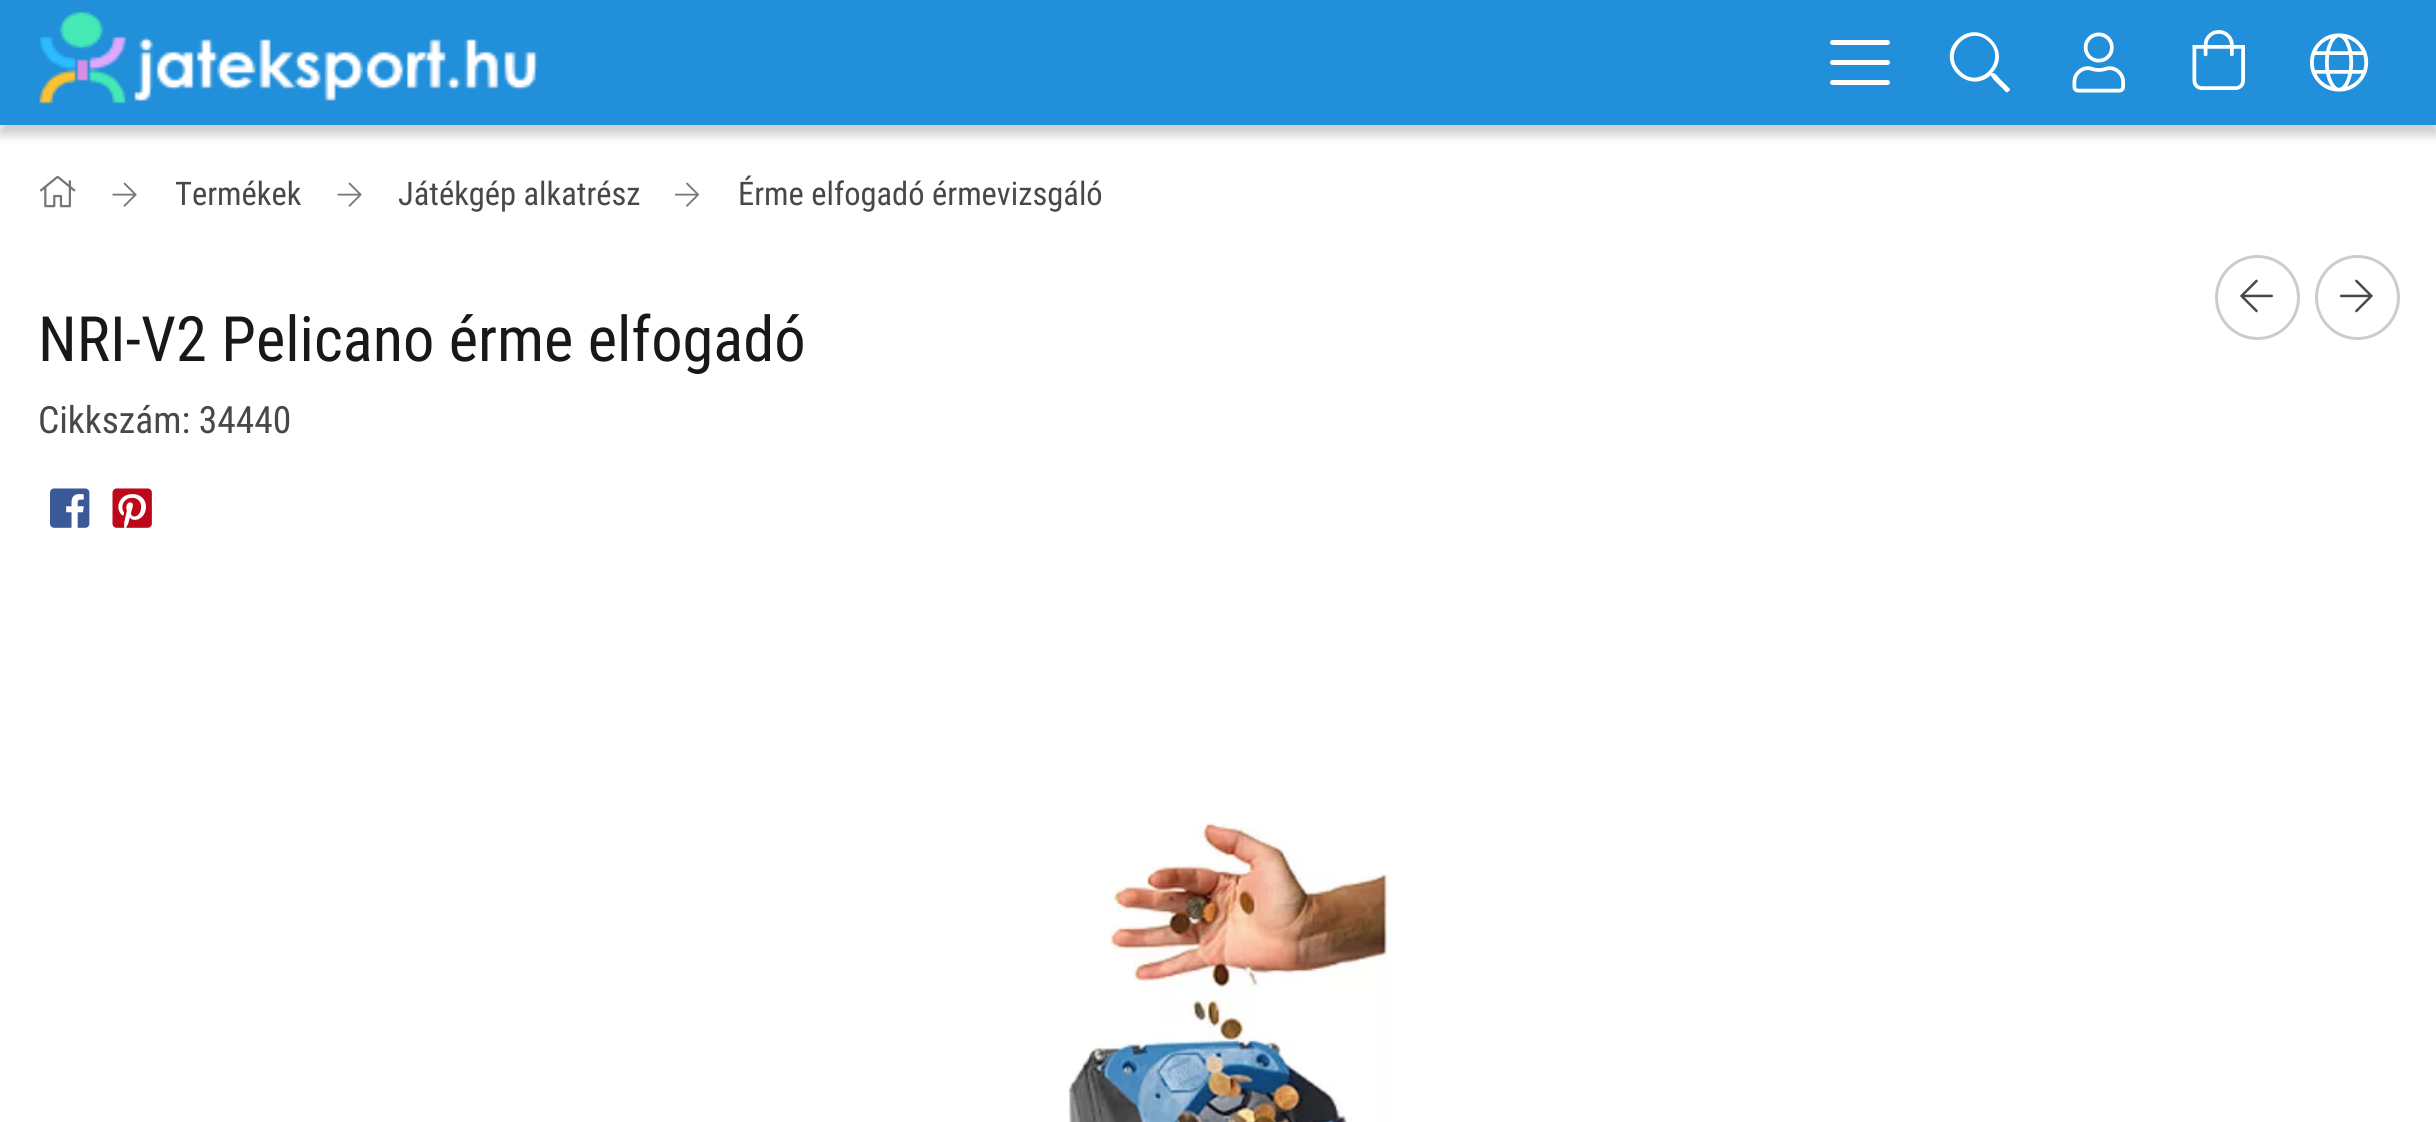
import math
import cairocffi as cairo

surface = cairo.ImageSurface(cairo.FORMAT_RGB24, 2436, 1122)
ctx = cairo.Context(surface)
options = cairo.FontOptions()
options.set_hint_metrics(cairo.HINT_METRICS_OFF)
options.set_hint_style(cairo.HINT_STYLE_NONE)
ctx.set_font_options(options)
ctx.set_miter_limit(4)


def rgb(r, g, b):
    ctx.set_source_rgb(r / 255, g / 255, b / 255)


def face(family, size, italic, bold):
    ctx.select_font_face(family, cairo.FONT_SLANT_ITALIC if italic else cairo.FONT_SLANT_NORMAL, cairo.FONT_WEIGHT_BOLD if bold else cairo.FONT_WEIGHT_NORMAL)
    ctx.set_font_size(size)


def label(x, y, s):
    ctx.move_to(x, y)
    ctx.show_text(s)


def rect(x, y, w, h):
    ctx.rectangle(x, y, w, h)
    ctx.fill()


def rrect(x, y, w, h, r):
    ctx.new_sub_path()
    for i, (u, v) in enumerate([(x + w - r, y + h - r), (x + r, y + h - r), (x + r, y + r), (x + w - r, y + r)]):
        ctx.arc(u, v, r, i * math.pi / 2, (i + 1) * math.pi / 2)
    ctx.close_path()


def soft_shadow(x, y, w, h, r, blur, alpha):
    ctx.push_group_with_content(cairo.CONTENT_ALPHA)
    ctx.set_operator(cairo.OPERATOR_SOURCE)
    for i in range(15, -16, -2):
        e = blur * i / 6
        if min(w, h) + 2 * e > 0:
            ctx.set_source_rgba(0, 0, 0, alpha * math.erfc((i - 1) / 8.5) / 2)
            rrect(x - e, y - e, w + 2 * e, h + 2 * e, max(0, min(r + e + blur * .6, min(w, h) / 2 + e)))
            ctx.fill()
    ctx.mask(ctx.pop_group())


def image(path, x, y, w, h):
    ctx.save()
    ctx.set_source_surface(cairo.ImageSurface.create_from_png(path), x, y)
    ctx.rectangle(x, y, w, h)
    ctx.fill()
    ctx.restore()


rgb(255, 255, 255)
ctx.paint()
rgb(0, 0, 0)
soft_shadow(0, 10, 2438, 125, 0, 5, 0.2)
rgb(33, 143, 217)
rect(0, 0, 2436, 125)
image('image0.png', 39, 11, 499, 94)
rgb(255, 255, 255)
rrect(1830, 40, 60, 5, 2.5)
ctx.fill()
rrect(1830, 60, 60, 5, 2.5)
ctx.fill()
rrect(1830, 80, 60, 5, 2.5)
ctx.fill()
ctx.new_path()
ctx.move_to(2010, 89)
ctx.line_to(2010, 90)
ctx.line_to(2008, 92)
ctx.curve_to(2006, 94, 2003, 88, 2001, 87)
ctx.line_to(1994, 80)
ctx.curve_to(1992, 77, 1991, 77, 1991, 75)
ctx.curve_to(1968, 96, 1935, 62, 1957, 40)
ctx.curve_to(1979, 17, 2014, 50, 1992, 73)
ctx.curve_to(1996, 73, 1997, 76, 2000, 79)
ctx.close_path()
ctx.move_to(1960, 71)
ctx.curve_to(1979, 91, 2008, 61, 1989, 42)
ctx.curve_to(1970, 23, 1941, 52, 1960, 71)
ctx.close_path()
ctx.fill()
image('image1.png', 2072, 32, 53, 61)
image('image2.png', 2192, 30, 53, 60)
image('image3.png', 2310, 33, 59, 59)
image('image4.png', 39, 176, 37, 32)
image('image5.png', 112, 182, 25, 25)
face('Roboto Condensed', 32.5, 0, 0)
rgb(72, 72, 72)
label(175, 205, 'Termékek')
image('image5.png', 337, 182, 25, 25)
label(398, 205, 'Játékgép alkatrész')
image('image6.png', 675, 182, 25, 25)
label(738, 205, 'Érme elfogadó érmevizsgáló')
face('Roboto Condensed', 62.5, 0, 0)
rgb(24, 24, 24)
label(38, 361, 'NRI-V2 Pelicano érme elfogadó')
ctx.new_path()
ctx.arc(2257.5, 297.5, 41, 0, 2 * math.pi)
rgb(204, 204, 204)
ctx.set_line_width(3)
ctx.stroke()
image('image7.png', 2240, 279, 33, 34)
ctx.arc(2357.5, 297.5, 41, 0, 2 * math.pi)
ctx.stroke()
image('image8.png', 2340, 279, 33, 34)
face('Roboto Condensed', 37.5, 0, 0)
rgb(72, 72, 72)
label(38, 433, 'Cikkszám: 34440')
image('image9.png', 50, 488, 40, 40)
image('image10.png', 112, 488, 40, 40)
image('image11.png', 1068, 822, 321, 300)
surface.write_to_png('render.png')
